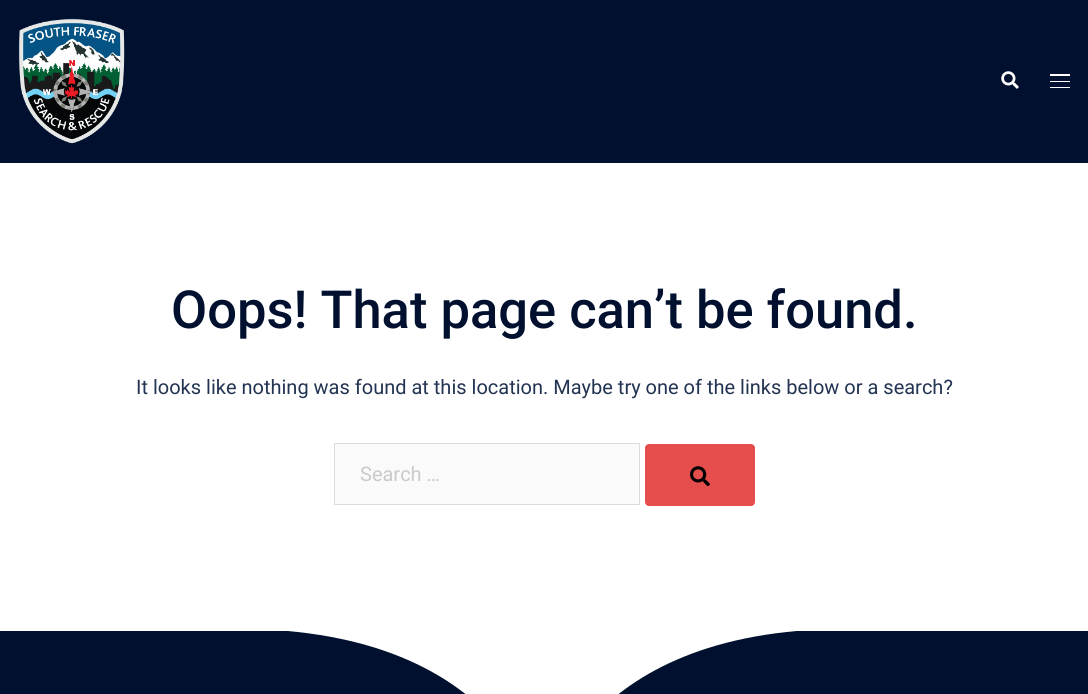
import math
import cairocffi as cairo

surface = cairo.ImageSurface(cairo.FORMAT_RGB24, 1088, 694)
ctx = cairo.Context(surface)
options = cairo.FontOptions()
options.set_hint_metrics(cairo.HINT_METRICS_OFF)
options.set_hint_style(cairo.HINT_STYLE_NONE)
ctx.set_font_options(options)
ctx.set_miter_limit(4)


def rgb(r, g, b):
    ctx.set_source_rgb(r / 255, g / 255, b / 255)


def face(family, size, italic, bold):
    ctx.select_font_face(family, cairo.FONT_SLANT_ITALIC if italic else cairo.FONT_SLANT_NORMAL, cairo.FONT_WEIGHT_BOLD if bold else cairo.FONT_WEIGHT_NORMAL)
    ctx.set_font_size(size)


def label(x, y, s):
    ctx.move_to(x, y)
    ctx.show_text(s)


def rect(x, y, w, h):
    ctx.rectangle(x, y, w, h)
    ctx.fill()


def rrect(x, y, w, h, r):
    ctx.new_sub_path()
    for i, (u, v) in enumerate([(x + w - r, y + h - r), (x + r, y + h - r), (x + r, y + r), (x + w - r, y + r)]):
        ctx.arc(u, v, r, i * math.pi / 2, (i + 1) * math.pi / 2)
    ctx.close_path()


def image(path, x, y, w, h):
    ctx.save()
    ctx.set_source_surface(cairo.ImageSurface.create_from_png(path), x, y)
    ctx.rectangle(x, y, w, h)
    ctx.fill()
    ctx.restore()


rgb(255, 255, 255)
ctx.paint()
rgb(0, 16, 46)
rect(0, 0, 1088, 163)
image('image0.png', 18, 18, 107, 126)
image('image1.png', 1001, 71, 18, 18)
rgb(255, 255, 255)
rect(1050, 74, 20, 2)
rect(1050, 81, 20, 1)
rect(1050, 87, 20, 1)
face('Roboto Medium', 52.5, 0, 0)
rgb(0, 16, 46)
label(171, 328, 'Oops! That page can’t be found.')
face('Roboto', 20, 0, 0)
rgb(35, 52, 82)
label(136, 394, 'It looks like nothing was found at this location. Maybe try one of the links below or a search?')
rgb(250, 250, 250)
ctx.rectangle(334.5, 443.5, 305, 61)
ctx.fill_preserve()
rgb(219, 219, 219)
ctx.set_line_width(1)
ctx.stroke()
rgb(202, 202, 202)
label(360, 481, 'Search …')
rgb(230, 78, 78)
rrect(645.5, 444.5, 109, 61, 3.5)
ctx.fill_preserve()
ctx.stroke()
image('image2.png', 690, 466, 20, 20)
rgb(0, 16, 46)
rect(0, 631, 1088, 63)
ctx.save()
ctx.rectangle(0, 630, 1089, 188)
ctx.clip()
rgb(255, 255, 255)
ctx.new_path()
ctx.move_to(542, 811)
ctx.curve_to(542, 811, 569, 635, 833, 629)
ctx.line_to(251, 629)
ctx.curve_to(515, 635, 542, 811, 542, 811)
ctx.close_path()
ctx.fill()
ctx.restore()
surface.write_to_png('render.png')
